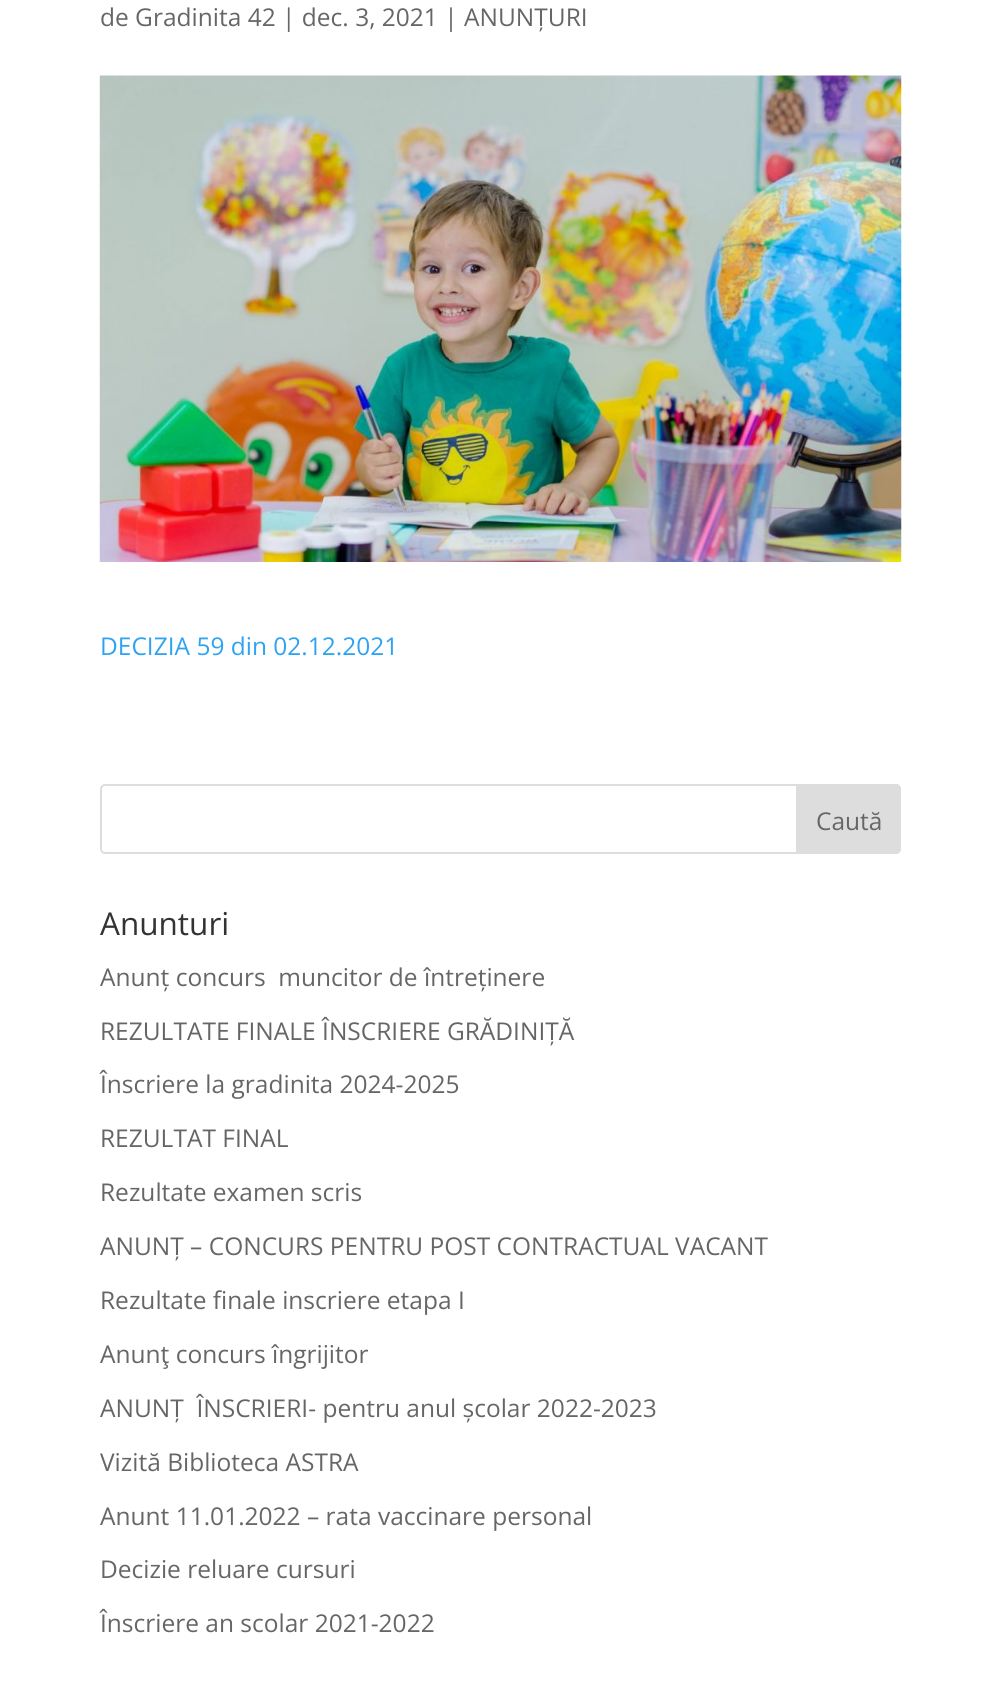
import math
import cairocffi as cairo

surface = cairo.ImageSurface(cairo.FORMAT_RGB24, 1001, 1698)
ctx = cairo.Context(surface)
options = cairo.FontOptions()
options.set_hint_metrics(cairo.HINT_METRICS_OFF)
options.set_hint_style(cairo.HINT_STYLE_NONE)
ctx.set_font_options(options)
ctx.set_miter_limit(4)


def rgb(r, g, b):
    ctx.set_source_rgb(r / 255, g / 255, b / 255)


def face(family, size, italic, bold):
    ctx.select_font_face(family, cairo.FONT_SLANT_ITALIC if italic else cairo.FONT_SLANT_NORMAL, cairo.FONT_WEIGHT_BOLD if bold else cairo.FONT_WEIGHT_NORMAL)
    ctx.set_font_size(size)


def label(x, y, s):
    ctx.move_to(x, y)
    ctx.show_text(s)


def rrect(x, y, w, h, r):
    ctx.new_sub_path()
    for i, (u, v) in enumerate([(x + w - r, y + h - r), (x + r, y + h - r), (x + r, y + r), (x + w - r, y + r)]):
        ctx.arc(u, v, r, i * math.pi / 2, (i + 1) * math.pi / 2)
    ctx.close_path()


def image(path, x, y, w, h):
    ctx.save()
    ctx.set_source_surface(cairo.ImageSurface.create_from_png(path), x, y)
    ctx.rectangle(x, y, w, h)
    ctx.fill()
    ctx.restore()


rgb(255, 255, 255)
ctx.paint()
face('Open Sans', 24.5, 0, 0)
rgb(102, 102, 102)
label(100, 26, 'de Gradinita 42 | dec. 3, 2021 | ANUNȚURI')
image('image0.png', 99, 75, 803, 487)
rgb(46, 163, 242)
label(100, 655, 'DECIZIA 59 din 02.12.2021')
rrect(101, 785, 799, 68, 4)
rgb(221, 221, 221)
ctx.stroke()
ctx.new_path()
ctx.move_to(797, 785)
ctx.line_to(896, 785)
ctx.curve_to(898, 785, 900, 787, 900, 789)
ctx.line_to(900, 849)
ctx.curve_to(900, 851, 898, 853, 896, 853)
ctx.line_to(797, 853)
ctx.close_path()
ctx.fill_preserve()
ctx.stroke()
rgb(102, 102, 102)
label(816, 830, 'Caută')
face('Open Sans', 31.5, 0, 0)
rgb(51, 51, 51)
label(100, 935, 'Anunturi')
face('Open Sans', 24.5, 0, 0)
rgb(102, 102, 102)
label(100, 986, 'Anunț concurs  muncitor de întreținere')
label(100, 1040, 'REZULTATE FINALE ÎNSCRIERE GRĂDINIȚĂ')
label(100, 1093, 'Înscriere la gradinita 2024-2025')
label(100, 1147, 'REZULTAT FINAL')
label(100, 1201, 'Rezultate examen scris')
label(100, 1255, 'ANUNȚ – CONCURS PENTRU POST CONTRACTUAL VACANT')
label(100, 1309, 'Rezultate finale inscriere etapa I')
label(100, 1363, 'Anunţ concurs îngrijitor')
label(100, 1417, 'ANUNȚ  ÎNSCRIERI- pentru anul școlar 2022-2023')
label(100, 1471, 'Vizită Biblioteca ASTRA')
label(100, 1525, 'Anunt 11.01.2022 – rata vaccinare personal')
label(100, 1578, 'Decizie reluare cursuri')
label(100, 1632, 'Înscriere an scolar 2021-2022')
surface.write_to_png('render.png')
